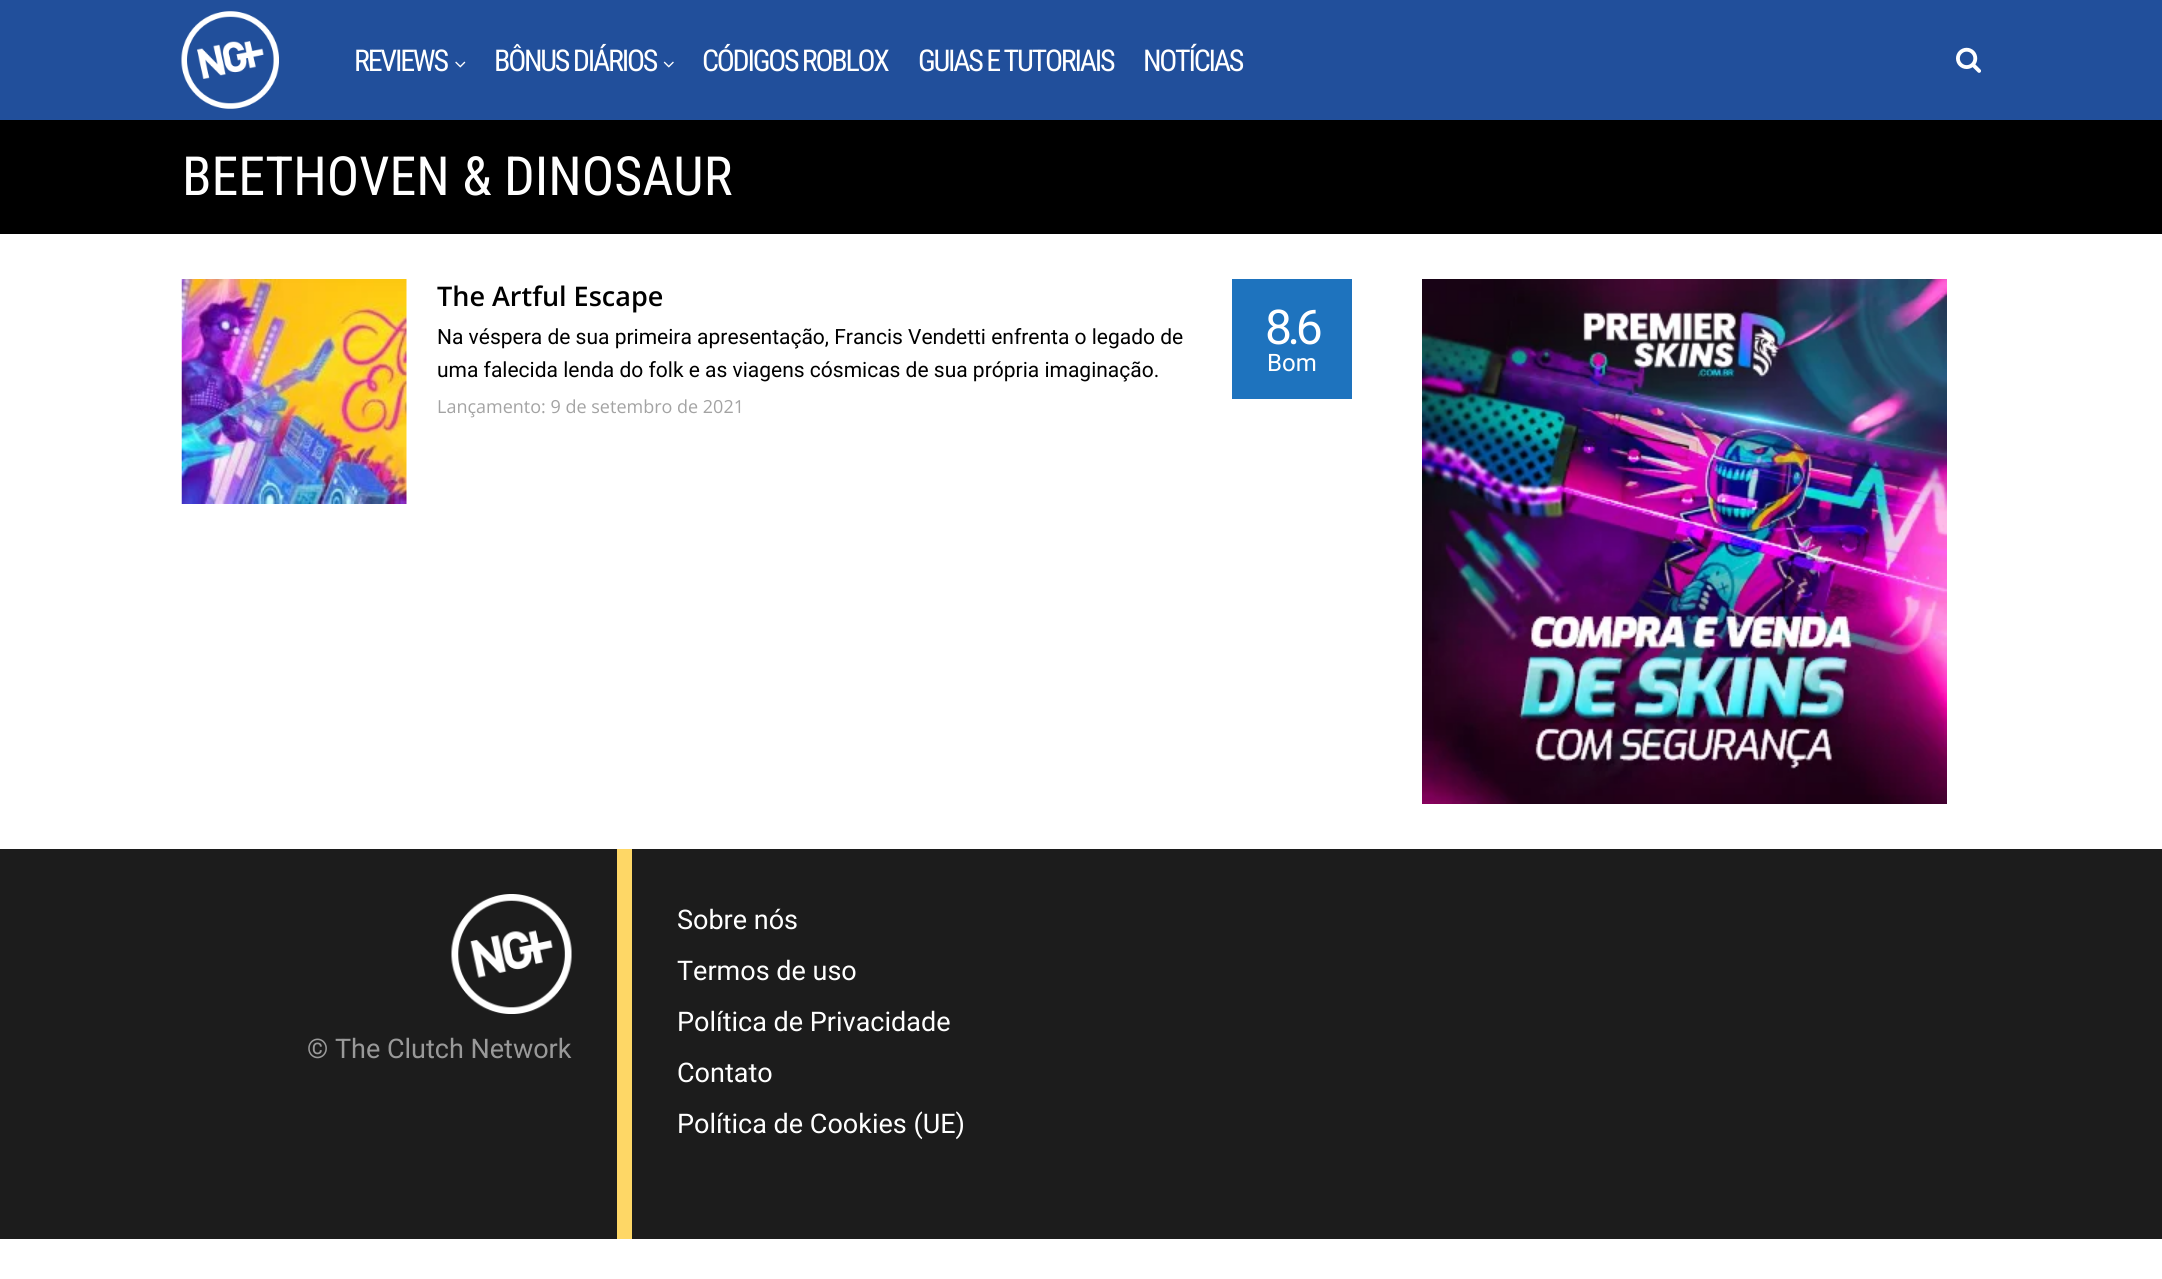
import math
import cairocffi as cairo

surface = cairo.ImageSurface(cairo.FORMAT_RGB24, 2162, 1279)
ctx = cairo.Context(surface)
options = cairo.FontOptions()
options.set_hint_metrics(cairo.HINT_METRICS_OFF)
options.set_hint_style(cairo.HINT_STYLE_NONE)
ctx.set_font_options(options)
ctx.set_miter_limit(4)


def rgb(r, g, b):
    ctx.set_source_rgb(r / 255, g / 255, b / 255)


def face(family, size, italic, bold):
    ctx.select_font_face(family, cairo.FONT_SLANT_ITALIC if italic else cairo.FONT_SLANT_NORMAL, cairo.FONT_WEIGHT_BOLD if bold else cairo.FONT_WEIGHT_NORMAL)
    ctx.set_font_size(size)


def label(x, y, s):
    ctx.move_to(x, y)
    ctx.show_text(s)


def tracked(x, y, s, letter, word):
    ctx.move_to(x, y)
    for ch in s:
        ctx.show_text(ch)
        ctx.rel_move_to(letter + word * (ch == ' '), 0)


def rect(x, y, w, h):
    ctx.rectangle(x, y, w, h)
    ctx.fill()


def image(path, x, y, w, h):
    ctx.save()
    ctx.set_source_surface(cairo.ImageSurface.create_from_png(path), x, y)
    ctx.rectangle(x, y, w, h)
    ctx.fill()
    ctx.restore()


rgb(255, 255, 255)
ctx.paint()
rgb(33, 79, 155)
rect(0, 0, 2162, 120)
image('image0.png', 181, 11, 98, 98)
face('Roboto Condensed', 30, 0, 0)
rgb(255, 255, 255)
tracked(354, 71, 'REVIEWS', -2.25, 0)
image('image1.png', 455, 61, 11, 7)
tracked(494, 71, 'BÔNUS DIÁRIOS', -2.25, 0)
image('image2.png', 663, 61, 11, 7)
tracked(702, 71, 'CÓDIGOS ROBLOX', -2.25, 0)
tracked(918, 71, 'GUIAS E TUTORIAIS', -2.25, 0)
tracked(1143, 71, 'NOTÍCIAS', -2.25, 0)
image('image3.png', 1956, 47, 25, 26)
rgb(0, 0, 0)
rect(0, 120, 2162, 114)
face('Roboto Condensed', 54, 0, 0)
rgb(255, 255, 255)
label(182, 195, 'BEETHOVEN & DINOSAUR')
image('image4.png', 181, 279, 226, 225)
face('Open Sans SemiBold', 27, 0, 0)
rgb(0, 0, 0)
label(437, 306, 'The Artful Escape')
face('Roboto', 21, 0, 0)
label(437, 344, 'Na véspera de sua primeira apresentação, Francis Vendetti enfrenta o legado de')
label(437, 377, 'uma falecida lenda do folk e as viagens cósmicas de sua própria imaginação.')
face('Open Sans', 18, 0, 0)
rgb(163, 163, 163)
label(437, 413, 'Lançamento: 9 de setembro de 2021')
rgb(30, 115, 190)
rect(1232, 279, 120, 120)
face('Roboto', 48, 0, 0)
rgb(255, 255, 255)
tracked(1265, 344, '8.6', -4.5, 0)
face('Roboto', 24, 0, 0)
label(1267, 371, 'Bom')
image('image5.png', 1422, 279, 525, 525)
rgb(28, 28, 28)
rect(0, 849, 2162, 390)
rgb(254, 215, 102)
rect(617, 849, 15, 390)
image('image6.png', 451, 894, 121, 120)
face('Roboto', 27, 0, 0)
rgb(153, 153, 153)
label(307, 1058, '© The Clutch Network')
rgb(255, 255, 255)
label(677, 929, 'Sobre nós')
label(677, 980, 'Termos de uso')
label(677, 1031, 'Política de Privacidade')
label(677, 1082, 'Contato')
label(677, 1133, 'Política de Cookies (UE)')
surface.write_to_png('render.png')
